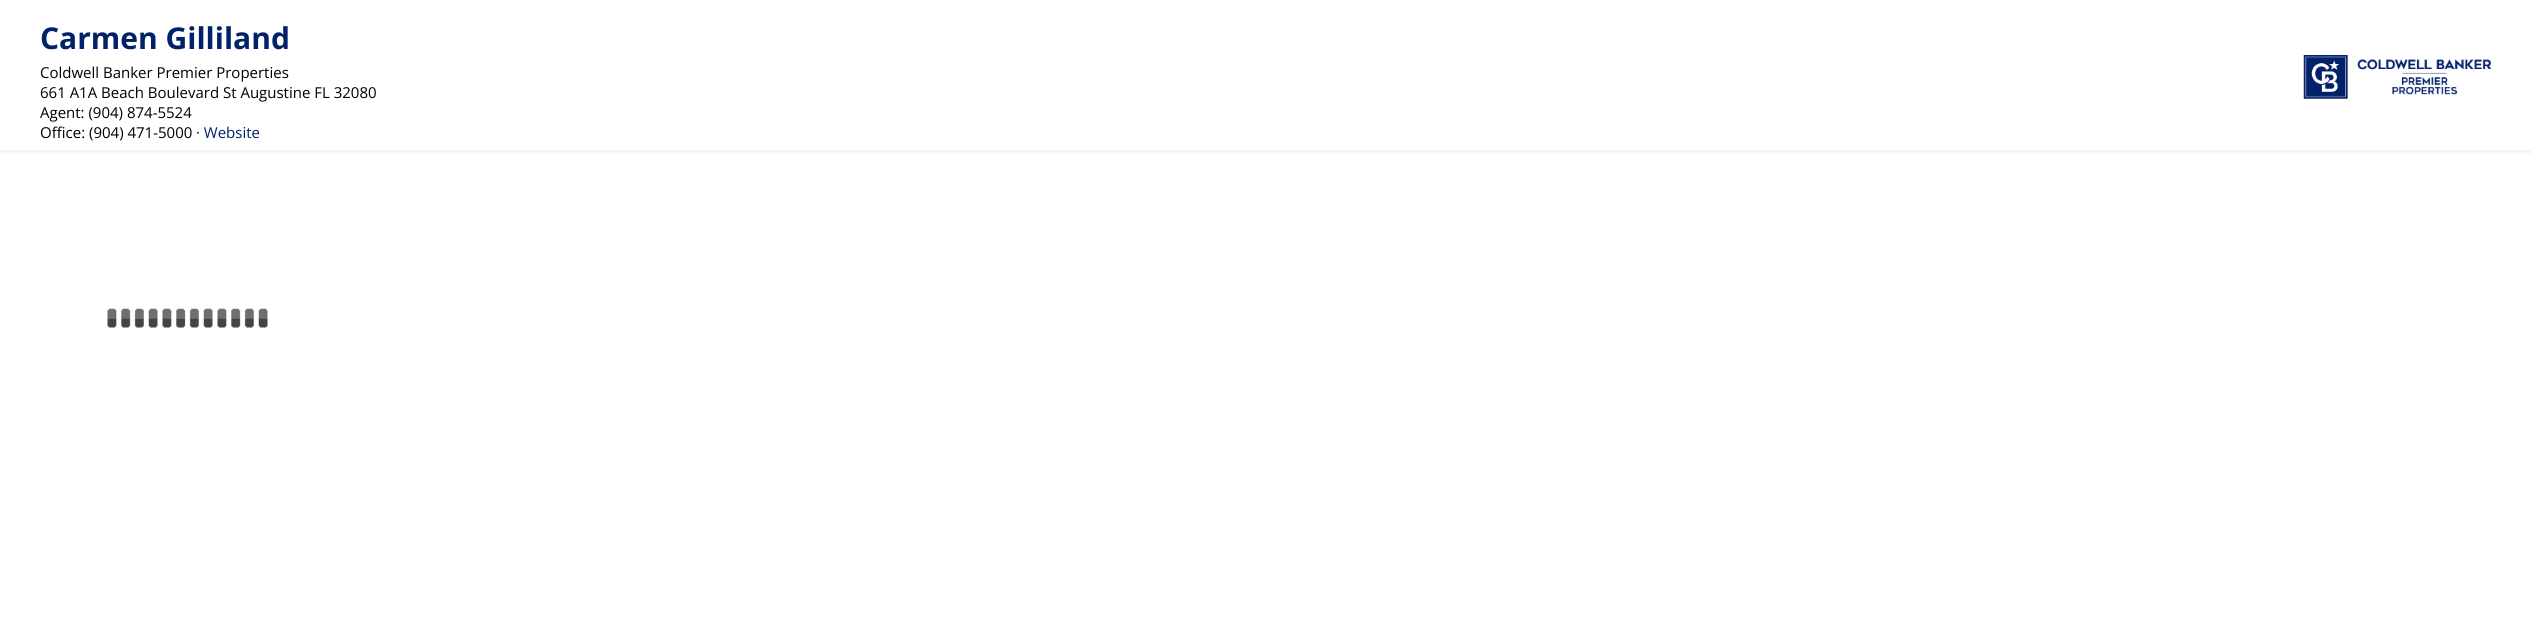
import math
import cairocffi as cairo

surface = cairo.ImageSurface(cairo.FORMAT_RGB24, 2531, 617)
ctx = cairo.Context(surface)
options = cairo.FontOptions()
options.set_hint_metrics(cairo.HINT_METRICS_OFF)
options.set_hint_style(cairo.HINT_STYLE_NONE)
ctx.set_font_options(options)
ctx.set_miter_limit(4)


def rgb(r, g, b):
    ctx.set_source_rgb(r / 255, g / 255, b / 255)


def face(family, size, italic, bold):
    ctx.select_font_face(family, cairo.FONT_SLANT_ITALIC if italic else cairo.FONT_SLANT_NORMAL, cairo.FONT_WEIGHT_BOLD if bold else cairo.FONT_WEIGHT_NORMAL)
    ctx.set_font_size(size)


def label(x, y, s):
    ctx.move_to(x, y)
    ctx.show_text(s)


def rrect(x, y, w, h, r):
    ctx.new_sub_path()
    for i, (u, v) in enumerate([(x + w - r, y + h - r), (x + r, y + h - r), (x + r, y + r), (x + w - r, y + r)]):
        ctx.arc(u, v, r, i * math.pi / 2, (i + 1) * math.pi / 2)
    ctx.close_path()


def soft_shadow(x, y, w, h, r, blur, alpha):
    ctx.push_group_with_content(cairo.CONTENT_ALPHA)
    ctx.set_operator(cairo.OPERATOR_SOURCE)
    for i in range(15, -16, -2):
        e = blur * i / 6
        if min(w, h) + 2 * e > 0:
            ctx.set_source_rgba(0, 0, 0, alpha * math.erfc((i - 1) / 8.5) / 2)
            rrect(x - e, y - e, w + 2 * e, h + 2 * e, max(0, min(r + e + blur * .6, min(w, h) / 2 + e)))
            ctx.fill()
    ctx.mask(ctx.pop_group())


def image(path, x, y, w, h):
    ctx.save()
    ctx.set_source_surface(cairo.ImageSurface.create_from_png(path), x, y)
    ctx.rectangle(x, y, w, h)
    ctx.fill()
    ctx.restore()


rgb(255, 255, 255)
ctx.paint()
ctx.save()
ctx.rectangle(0, 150, 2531, 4)
ctx.clip()
rgb(0, 0, 0)
soft_shadow(0, 3, 2531, 150, 0, 2.5, 0.06)
ctx.restore()
face('Open Sans', 30, 0, 1)
rgb(1, 33, 105)
label(40, 49, 'Carmen Gilliland')
face('Open Sans', 15, 0, 0)
rgb(0, 0, 0)
label(40, 78, 'Coldwell Banker Premier Properties')
label(40, 98, '661 A1A Beach Boulevard St Augustine FL 32080')
label(40, 118, 'Agent: (904) 874-5524')
label(40, 138, 'Office: (904) 471-5000')
rgb(1, 33, 105)
label(196, 138, '· Website')
image('image0.png', 2303, 55, 189, 44)
image('image1.png', 107, 308, 161, 20)
surface.write_to_png('render.png')
